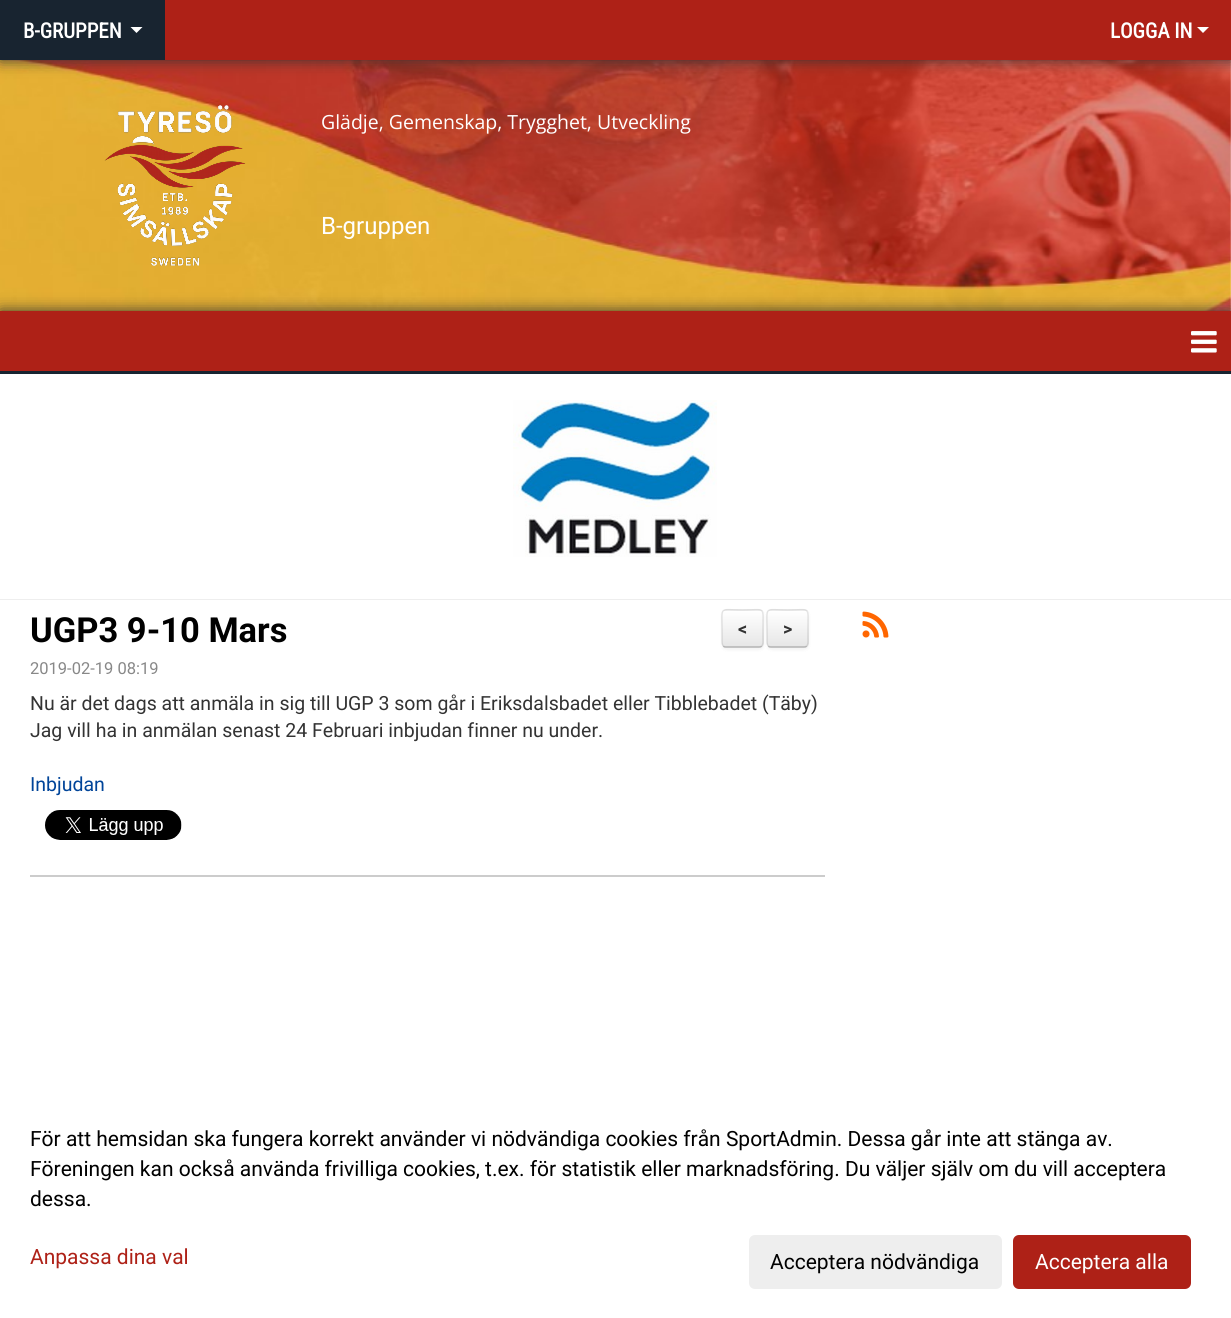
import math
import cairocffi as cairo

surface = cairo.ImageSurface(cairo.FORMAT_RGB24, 1231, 1318)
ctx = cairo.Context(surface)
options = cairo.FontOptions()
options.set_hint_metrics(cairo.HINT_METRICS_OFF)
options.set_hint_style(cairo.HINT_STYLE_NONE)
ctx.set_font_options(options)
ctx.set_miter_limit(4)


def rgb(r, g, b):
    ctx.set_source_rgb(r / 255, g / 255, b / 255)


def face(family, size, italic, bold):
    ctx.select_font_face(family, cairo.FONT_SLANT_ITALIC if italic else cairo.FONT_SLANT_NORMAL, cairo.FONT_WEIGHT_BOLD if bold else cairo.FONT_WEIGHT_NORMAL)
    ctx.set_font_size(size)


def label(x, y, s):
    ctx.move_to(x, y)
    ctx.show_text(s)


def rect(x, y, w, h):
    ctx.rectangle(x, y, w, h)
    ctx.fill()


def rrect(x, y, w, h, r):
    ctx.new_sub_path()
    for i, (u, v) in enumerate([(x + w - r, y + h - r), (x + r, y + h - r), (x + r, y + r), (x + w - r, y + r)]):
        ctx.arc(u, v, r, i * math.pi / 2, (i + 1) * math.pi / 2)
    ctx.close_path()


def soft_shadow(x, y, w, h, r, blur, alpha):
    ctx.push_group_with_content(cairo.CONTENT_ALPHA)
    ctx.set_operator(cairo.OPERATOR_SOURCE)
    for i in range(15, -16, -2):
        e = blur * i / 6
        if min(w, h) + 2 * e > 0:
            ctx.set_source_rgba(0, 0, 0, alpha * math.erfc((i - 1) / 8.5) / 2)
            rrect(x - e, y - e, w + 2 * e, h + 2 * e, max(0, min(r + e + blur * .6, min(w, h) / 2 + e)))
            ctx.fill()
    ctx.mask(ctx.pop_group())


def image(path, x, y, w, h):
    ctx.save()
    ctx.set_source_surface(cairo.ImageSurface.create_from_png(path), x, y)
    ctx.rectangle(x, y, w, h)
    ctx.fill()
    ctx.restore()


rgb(255, 255, 255)
ctx.paint()
image('image0.png', 0, 60, 1231, 251)
rgb(51, 51, 51)
soft_shadow(0, 0, 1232, 60, 0, 7.5, 1)
rgb(174, 33, 23)
rect(165, 0, 1066, 60)
rgb(24, 36, 48)
rect(0, 0, 165, 60)
face('Roboto Condensed', 21, 0, 1)
rgb(255, 255, 255)
label(23, 38, 'B-GRUPPEN')
ctx.new_path()
ctx.move_to(130.5, 27)
ctx.line_to(142.5, 27)
ctx.line_to(136.5, 33)
ctx.close_path()
ctx.fill()
label(1110, 38, 'LOGGA IN')
ctx.new_path()
ctx.move_to(1197, 27)
ctx.line_to(1209, 27)
ctx.line_to(1203, 33)
ctx.close_path()
ctx.fill()
image('image1.png', 104, 105, 142, 161)
face('Open Sans', 19.5, 0, 0)
label(321, 129, 'Glädje, Gemenskap, Trygghet, Utveckling')
face('Roboto', 24, 0, 0)
label(321, 234, 'B-gruppen')
rgb(51, 51, 51)
soft_shadow(0, 311, 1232, 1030, 0, 7.5, 1)
rgb(255, 255, 255)
rect(0, 374, 1231, 944)
rgb(174, 33, 23)
rect(0, 311, 1231, 60)
rgb(24, 36, 48)
rect(0, 371, 1231, 3)
image('image2.png', 1191, 331, 26, 22)
image('image3.png', 513, 400, 204, 157)
rgb(238, 238, 238)
rect(0, 599, 1231, 1)
face('Roboto', 34.5, 0, 1)
rgb(0, 0, 0)
label(30, 642, 'UGP3 9-10 Mars')
face('Roboto', 16.5, 0, 0)
rgb(136, 136, 136)
label(30, 674, '2019-02-19 08:19')
face('Roboto', 19.5, 0, 0)
rgb(51, 51, 51)
label(30, 710, 'Nu är det dags att anmäla in sig till UGP 3 som går i Eriksdalsbadet eller Tibblebadet (Täby)')
label(30, 737, 'Jag vill ha in anmälan senast 24 Februari inbjudan finner nu under.')
rgb(0, 68, 153)
label(30, 791, 'Inbjudan')
image('image4.png', 45, 810, 137, 30)
rgb(204, 204, 204)
rect(30, 875, 795, 2)
rgb(0, 0, 0)
soft_shadow(767, 611, 42, 39, 5, 1.5, 0.05)
rgb(245, 245, 245)
rrect(767, 609, 42, 39, 5)
ctx.fill()
ctx.save()
rrect(767, 609, 42, 39, 5)
ctx.clip()
gradient = cairo.LinearGradient(788, 611, 788, 647)
gradient.add_color_stop_rgba(0, 1, 1, 1, 1)
gradient.add_color_stop_rgba(1, 0.902, 0.902, 0.902, 1)
ctx.set_source(gradient)
rect(767, 611, 42, 36)
ctx.restore()
ctx.new_path()
ctx.move_to(806.5, 646)
ctx.curve_to(806, 647, 805, 647, 804, 647)
ctx.line_to(771, 647)
ctx.curve_to(770, 647, 769, 647, 768.5, 646)
rgb(179, 179, 179)
ctx.set_line_width(1.5)
ctx.stroke()
ctx.new_path()
ctx.move_to(768.5, 646)
ctx.curve_to(766.5, 644.5, 767, 640.5, 767, 638.5)
ctx.line_to(767, 628.5)
ctx.curve_to(767, 605.5, 764, 610, 787.5, 610)
ctx.curve_to(811, 610, 808, 605.5, 808, 628.5)
ctx.line_to(808, 638.5)
ctx.curve_to(808, 640.5, 808.5, 644.5, 806.5, 646)
ctx.set_source_rgba(0, 0, 0, 0.1)
ctx.stroke()
rgb(0, 0, 0)
soft_shadow(722, 611, 42, 39, 5, 1.5, 0.05)
rgb(245, 245, 245)
rrect(722, 609, 42, 39, 5)
ctx.fill()
ctx.save()
rrect(722, 609, 42, 39, 5)
ctx.clip()
gradient = cairo.LinearGradient(743, 611, 743, 647)
gradient.add_color_stop_rgba(0, 1, 1, 1, 1)
gradient.add_color_stop_rgba(1, 0.902, 0.902, 0.902, 1)
ctx.set_source(gradient)
rect(722, 611, 42, 36)
ctx.restore()
ctx.new_path()
ctx.move_to(761.5, 646)
ctx.curve_to(761, 647, 760, 647, 759, 647)
ctx.line_to(726, 647)
ctx.curve_to(725, 647, 724, 647, 723.5, 646)
rgb(179, 179, 179)
ctx.stroke()
ctx.new_path()
ctx.move_to(723.5, 646)
ctx.curve_to(721.5, 644.5, 722, 640.5, 722, 638.5)
ctx.line_to(722, 628.5)
ctx.curve_to(722, 605.5, 719, 610, 742.5, 610)
ctx.curve_to(766, 610, 763, 605.5, 763, 628.5)
ctx.line_to(763, 638.5)
ctx.curve_to(763, 640.5, 763.5, 644.5, 761.5, 646)
ctx.set_source_rgba(0, 0, 0, 0.1)
ctx.stroke()
face('Roboto', 18, 0, 1)
rgb(51, 51, 51)
label(738, 635, '<')
label(783, 635, '>')
image('image5.png', 862, 611, 27, 27)
face('Roboto', 21, 0, 0)
rgb(0, 0, 0)
label(30, 1146, 'För att hemsidan ska fungera korrekt använder vi nödvändiga cookies från SportAdmin. Dessa går inte att stänga av.')
label(30, 1176, 'Föreningen kan också använda frivilliga cookies, t.ex. för statistik eller marknadsföring. Du väljer själv om du vill acceptera')
label(30, 1206, 'dessa.')
rgb(174, 33, 23)
label(30, 1264, 'Anpassa dina val')
rgb(238, 238, 238)
rrect(749, 1235, 253, 54, 6)
ctx.fill()
rgb(0, 0, 0)
label(770, 1269, 'Acceptera nödvändiga')
rgb(174, 33, 23)
rrect(1013, 1235, 178, 54, 6)
ctx.fill()
rgb(255, 255, 255)
label(1035, 1269, 'Acceptera alla')
surface.write_to_png('render.png')
